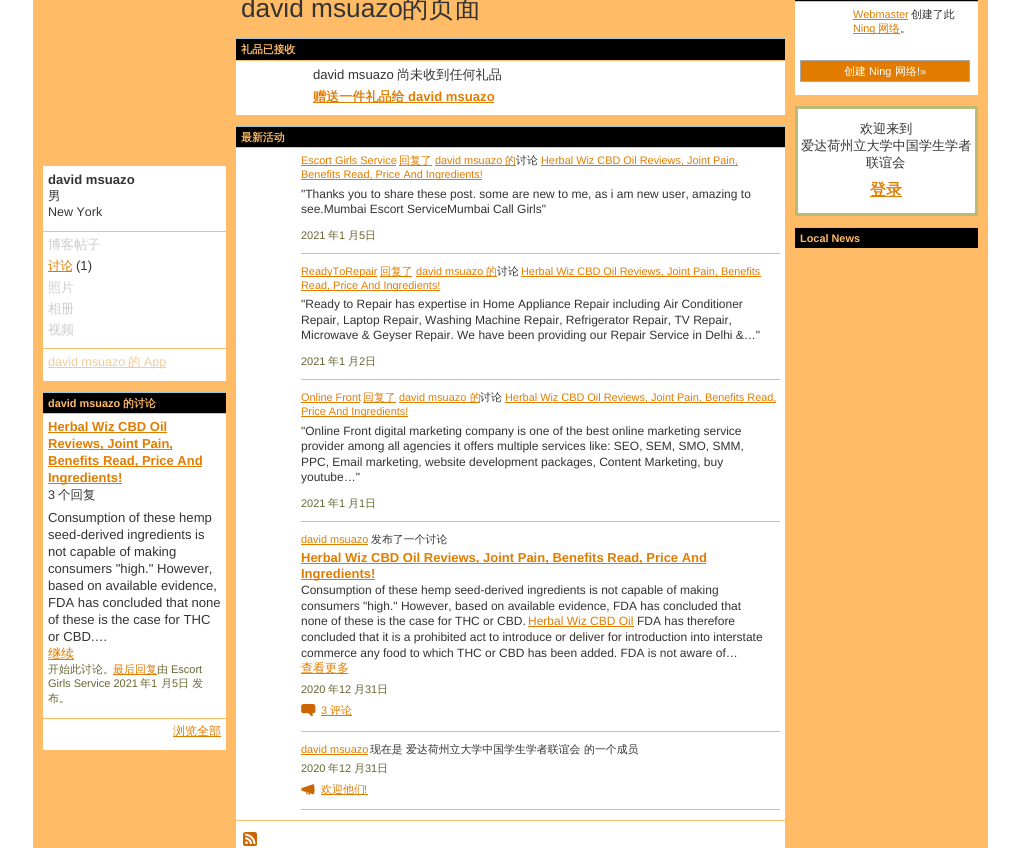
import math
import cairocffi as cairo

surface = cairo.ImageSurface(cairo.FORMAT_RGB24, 1020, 848)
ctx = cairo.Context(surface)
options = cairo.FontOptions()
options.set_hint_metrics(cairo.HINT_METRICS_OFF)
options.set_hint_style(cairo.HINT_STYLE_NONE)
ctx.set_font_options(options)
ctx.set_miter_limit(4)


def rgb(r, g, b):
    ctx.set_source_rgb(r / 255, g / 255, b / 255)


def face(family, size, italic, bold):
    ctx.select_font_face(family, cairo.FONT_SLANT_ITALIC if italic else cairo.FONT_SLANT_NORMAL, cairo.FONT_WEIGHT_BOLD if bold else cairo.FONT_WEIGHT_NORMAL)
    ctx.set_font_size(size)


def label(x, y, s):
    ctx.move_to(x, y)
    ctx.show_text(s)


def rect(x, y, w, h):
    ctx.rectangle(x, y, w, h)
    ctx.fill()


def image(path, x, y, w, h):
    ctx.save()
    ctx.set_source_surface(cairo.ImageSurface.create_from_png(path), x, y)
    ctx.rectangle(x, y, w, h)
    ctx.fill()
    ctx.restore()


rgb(255, 255, 255)
ctx.paint()
rgb(255, 187, 102)
rect(33, 0, 955, 848)
rgb(255, 255, 255)
rect(43, 166, 183, 65)
face('Liberation Sans', 13.1, 0, 1)
rgb(51, 51, 51)
label(48, 184, 'david msuazo')
face('WenQuanYi Zen Hei Medium', 12.5, 0, 0)
label(48, 200, '男')
face('Liberation Sans', 12.5, 0, 0)
label(48, 216, 'New York')
rgb(255, 255, 255)
rect(43, 232, 183, 116)
face('WenQuanYi Zen Hei Medium', 13.1, 0, 0)
rgb(204, 204, 204)
label(48, 249, '博客帖子')
rgb(225, 124, 0)
rect(48, 271, 24, 1)
face('WenQuanYi Zen Hei Medium', 12.5, 0, 0)
label(48, 270, '讨论')
face('Liberation Sans', 13.1, 0, 0)
rgb(51, 51, 51)
label(76, 270, '(1)')
face('WenQuanYi Zen Hei Medium', 13.1, 0, 0)
rgb(204, 204, 204)
label(48, 292, '照片')
label(48, 313, '相册')
label(48, 334, '视频')
rgb(255, 255, 255)
rect(43, 349, 183, 32)
face('Liberation Sans', 12.5, 0, 0)
rgb(243, 203, 153)
label(48, 366, 'david msuazo')
rect(48, 367, 118, 1)
face('WenQuanYi Zen Hei Medium', 12.5, 0, 0)
label(128, 366, '的')
face('Liberation Sans', 12.5, 0, 0)
label(144, 366, 'App')
rgb(0, 0, 0)
rect(43, 393, 183, 20)
rgb(155, 197, 218)
rect(43, 392, 183, 1)
face('Liberation Sans', 10.9, 0, 1)
rgb(255, 187, 102)
label(48, 407, 'david msuazo')
face('WenQuanYi Zen Hei', 10.9, 0, 1)
label(123, 407, '的讨论')
rgb(255, 255, 255)
rect(43, 414, 183, 304)
face('Liberation Sans', 13, 0, 1)
rgb(225, 124, 0)
label(48, 431, 'Herbal Wiz CBD Oil')
rect(48, 432, 119, 1)
rect(48, 449, 124, 1)
label(48, 448, 'Reviews, Joint Pain,')
rect(48, 466, 154, 1)
label(48, 465, 'Benefits Read, Price And')
rect(48, 483, 74, 1)
label(48, 482, 'Ingredients!')
face('Liberation Sans', 12.5, 0, 0)
rgb(51, 51, 51)
label(48, 499, '3')
face('WenQuanYi Zen Hei Medium', 12.5, 0, 0)
label(58, 499, '个回复')
face('Liberation Sans', 13.1, 0, 0)
label(48, 522, 'Consumption of these hemp')
label(48, 539, 'seed-derived ingredients is')
label(48, 556, 'not capable of making')
label(48, 573, 'consumers "high." However,')
label(48, 590, 'based on available evidence,')
label(48, 607, 'FDA has concluded that none')
label(48, 624, 'of these is the case for THC')
label(48, 641, 'or CBD.…')
rgb(225, 124, 0)
rect(48, 659, 26, 1)
ctx.save()
ctx.rectangle(48, 509, 173, 153)
ctx.clip()
face('WenQuanYi Zen Hei Medium', 13.1, 0, 0)
label(48, 658, '继续')
ctx.restore()
face('WenQuanYi Zen Hei Medium', 11, 0, 0)
rgb(102, 102, 51)
label(48, 673, '开始此讨论。')
rgb(225, 124, 0)
rect(113, 674, 44, 1)
label(113, 673, '最后回复')
rgb(102, 102, 51)
label(157, 673, '由')
face('Liberation Sans', 11, 0, 0)
label(171, 673, 'Escort')
label(48, 687, 'Girls Service 2021')
face('WenQuanYi Zen Hei Medium', 11, 0, 0)
label(140, 687, '年')
face('Liberation Sans', 11, 0, 0)
label(151, 687, '1')
face('WenQuanYi Zen Hei Medium', 11, 0, 0)
label(161, 687, '月')
face('Liberation Sans', 11, 0, 0)
label(172, 687, '5')
face('WenQuanYi Zen Hei Medium', 11, 0, 0)
label(178, 687, '日 发')
label(48, 702, '布。')
rgb(255, 255, 255)
rect(43, 719, 183, 31)
rgb(225, 124, 0)
rect(173, 736, 48, 1)
face('WenQuanYi Zen Hei Medium', 12, 0, 0)
label(173, 735, '浏览全部')
face('Liberation Sans', 26.25, 0, 0)
rgb(51, 51, 51)
label(241, 17, 'david msuazo')
face('WenQuanYi Zen Hei Medium', 26.25, 0, 0)
label(402, 17, '的页面')
rgb(0, 0, 0)
rect(236, 39, 549, 21)
rgb(155, 197, 218)
rect(236, 38, 549, 1)
face('WenQuanYi Zen Hei', 10.9, 0, 1)
rgb(255, 187, 102)
label(241, 53, '礼品已接收')
rgb(255, 255, 255)
rect(236, 61, 549, 54)
face('Liberation Sans', 13.1, 0, 0)
rgb(51, 51, 51)
label(313, 79, 'david msuazo')
face('WenQuanYi Zen Hei Medium', 13.1, 0, 0)
label(397, 79, '尚未收到任何礼品')
rgb(225, 124, 0)
rect(313, 102, 181, 1)
face('WenQuanYi Zen Hei', 13.1, 0, 1)
label(313, 101, '赠送一件礼品给')
face('Liberation Sans', 13.1, 0, 1)
label(408, 101, 'david msuazo')
rgb(0, 0, 0)
rect(236, 127, 549, 20)
rgb(155, 197, 218)
rect(236, 126, 549, 1)
face('WenQuanYi Zen Hei', 10.9, 0, 1)
rgb(255, 187, 102)
label(241, 141, '最新活动')
rgb(255, 255, 255)
rect(236, 148, 549, 672)
rgb(192, 192, 192)
rect(301, 253, 479, 1)
face('Liberation Sans', 10.9, 0, 0)
rgb(225, 124, 0)
label(301, 164, 'Escort Girls Service')
rect(301, 165, 95, 1)
rect(399, 165, 33, 1)
face('WenQuanYi Zen Hei Medium', 10.9, 0, 0)
label(399, 164, '回复了')
face('Liberation Sans', 10.9, 0, 0)
label(435, 164, 'david msuazo')
rect(435, 165, 81, 1)
face('WenQuanYi Zen Hei Medium', 10.9, 0, 0)
label(505, 164, '的')
rgb(51, 51, 51)
label(516, 164, '讨论')
rgb(225, 124, 0)
rect(541, 165, 197, 1)
face('Liberation Sans', 10.9, 0, 0)
label(541, 164, 'Herbal Wiz CBD Oil Reviews, Joint Pain,')
rect(301, 179, 181, 1)
label(301, 178, 'Benefits Read, Price And Ingredients!')
face('Liberation Sans', 12, 0, 0)
rgb(51, 51, 51)
label(301, 198, '"Thanks you to share these post. some are new to me, as i am new user, amazing to')
label(301, 213, 'see.Mumbai Escort ServiceMumbai Call Girls"')
face('Liberation Sans', 11, 0, 0)
rgb(102, 102, 51)
label(301, 239, '2021')
face('WenQuanYi Zen Hei Medium', 11, 0, 0)
label(328, 239, '年')
face('Liberation Sans', 11, 0, 0)
label(339, 239, '1')
face('WenQuanYi Zen Hei Medium', 11, 0, 0)
label(348, 239, '月')
face('Liberation Sans', 11, 0, 0)
label(359, 239, '5')
face('WenQuanYi Zen Hei Medium', 11, 0, 0)
label(365, 239, '日')
rgb(192, 192, 192)
rect(301, 379, 479, 1)
rgb(225, 124, 0)
rect(301, 276, 76, 1)
face('Liberation Sans', 10.9, 0, 0)
label(301, 275, 'ReadyToRepair')
rect(380, 276, 32, 1)
face('WenQuanYi Zen Hei Medium', 10.9, 0, 0)
label(380, 275, '回复了')
face('Liberation Sans', 10.9, 0, 0)
label(416, 275, 'david msuazo')
rect(416, 276, 81, 1)
face('WenQuanYi Zen Hei Medium', 10.9, 0, 0)
label(486, 275, '的')
rgb(51, 51, 51)
label(497, 275, '讨论')
rgb(225, 124, 0)
rect(521, 276, 240, 1)
face('Liberation Sans', 10.9, 0, 0)
label(521, 275, 'Herbal Wiz CBD Oil Reviews, Joint Pain, Benefits')
rect(301, 290, 139, 1)
label(301, 289, 'Read, Price And Ingredients!')
face('Liberation Sans', 12, 0, 0)
rgb(51, 51, 51)
label(301, 308, '"Ready to Repair has expertise in Home Appliance Repair including Air Conditioner')
label(301, 324, 'Repair, Laptop Repair, Washing Machine Repair, Refrigerator Repair, TV Repair,')
label(301, 339, 'Microwave & Geyser Repair. We have been providing our Repair Service in Delhi &…"')
face('Liberation Sans', 11, 0, 0)
rgb(102, 102, 51)
label(301, 365, '2021')
face('WenQuanYi Zen Hei Medium', 11, 0, 0)
label(328, 365, '年')
face('Liberation Sans', 11, 0, 0)
label(339, 365, '1')
face('WenQuanYi Zen Hei Medium', 11, 0, 0)
label(348, 365, '月')
face('Liberation Sans', 11, 0, 0)
label(359, 365, '2')
face('WenQuanYi Zen Hei Medium', 11, 0, 0)
label(365, 365, '日')
rgb(192, 192, 192)
rect(301, 521, 479, 1)
face('Liberation Sans', 10.9, 0, 0)
rgb(225, 124, 0)
label(301, 401, 'Online Front')
rect(301, 402, 59, 1)
rect(363, 402, 33, 1)
face('WenQuanYi Zen Hei Medium', 10.9, 0, 0)
label(363, 401, '回复了')
face('Liberation Sans', 10.9, 0, 0)
label(399, 401, 'david msuazo')
rect(399, 402, 81, 1)
face('WenQuanYi Zen Hei Medium', 10.9, 0, 0)
label(470, 401, '的')
rgb(51, 51, 51)
label(480, 401, '讨论')
rgb(225, 124, 0)
rect(505, 402, 271, 1)
face('Liberation Sans', 10.9, 0, 0)
label(505, 401, 'Herbal Wiz CBD Oil Reviews, Joint Pain, Benefits Read,')
rect(301, 416, 107, 1)
label(301, 415, 'Price And Ingredients!')
face('Liberation Sans', 12, 0, 0)
rgb(51, 51, 51)
label(301, 435, '"Online Front digital marketing company is one of the best online marketing service')
label(301, 450, 'provider among all agencies it offers multiple services like: SEO, SEM, SMO, SMM,')
label(301, 466, 'PPC, Email marketing, website development packages, Content Marketing, buy')
label(301, 481, 'youtube…"')
face('Liberation Sans', 11, 0, 0)
rgb(102, 102, 51)
label(301, 507, '2021')
face('WenQuanYi Zen Hei Medium', 11, 0, 0)
label(328, 507, '年')
face('Liberation Sans', 11, 0, 0)
label(339, 507, '1')
face('WenQuanYi Zen Hei Medium', 11, 0, 0)
label(348, 507, '月')
face('Liberation Sans', 11, 0, 0)
label(359, 507, '1')
face('WenQuanYi Zen Hei Medium', 11, 0, 0)
label(365, 507, '日')
rgb(192, 192, 192)
rect(301, 731, 479, 1)
face('Liberation Sans', 10.9, 0, 0)
rgb(225, 124, 0)
label(301, 543, 'david msuazo')
rect(301, 544, 67, 1)
face('WenQuanYi Zen Hei Medium', 10.9, 0, 0)
rgb(51, 51, 51)
label(371, 543, '发布了一个讨论')
rgb(225, 124, 0)
rect(301, 563, 405, 1)
face('Liberation Sans', 13, 0, 1)
label(301, 562, 'Herbal Wiz CBD Oil Reviews, Joint Pain, Benefits Read, Price And')
rect(301, 579, 74, 1)
label(301, 578, 'Ingredients!')
face('Liberation Sans', 12, 0, 0)
rgb(51, 51, 51)
label(301, 594, 'Consumption of these hemp seed-derived ingredients is not capable of making')
label(301, 610, 'consumers "high." However, based on available evidence, FDA has concluded that')
label(301, 625, 'none of these is the case for THC or CBD.')
rgb(225, 124, 0)
label(528, 625, 'Herbal Wiz CBD Oil')
rect(528, 626, 106, 1)
rgb(51, 51, 51)
label(637, 625, 'FDA has therefore')
label(301, 641, 'concluded that it is a prohibited act to introduce or deliver for introduction into interstate')
label(301, 657, 'commerce any food to which THC or CBD has been added. FDA is not aware of…')
rgb(225, 124, 0)
rect(301, 673, 47, 1)
face('WenQuanYi Zen Hei Medium', 12, 0, 0)
label(301, 672, '查看更多')
face('Liberation Sans', 11, 0, 0)
rgb(102, 102, 51)
label(301, 693, '2020')
face('WenQuanYi Zen Hei Medium', 11, 0, 0)
label(328, 693, '年')
face('Liberation Sans', 11, 0, 0)
label(339, 693, '12')
face('WenQuanYi Zen Hei Medium', 11, 0, 0)
label(354, 693, '月')
face('Liberation Sans', 11, 0, 0)
label(365, 693, '31')
face('WenQuanYi Zen Hei Medium', 11, 0, 0)
label(377, 693, '日')
image('image0.png', 301, 704, 15, 12)
face('Liberation Sans', 11, 0, 0)
rgb(225, 124, 0)
label(321, 714, '3')
rect(321, 715, 31, 1)
face('WenQuanYi Zen Hei Medium', 11, 0, 0)
label(330, 714, '评论')
rgb(192, 192, 192)
rect(301, 809, 479, 1)
face('Liberation Sans', 10.9, 0, 0)
rgb(225, 124, 0)
label(301, 753, 'david msuazo')
rect(301, 754, 67, 1)
face('WenQuanYi Zen Hei Medium', 10.9, 0, 0)
rgb(51, 51, 51)
label(370, 753, '现在是 爱达荷州立大学中国学生学者联谊会')
label(584, 753, '的一个成员')
face('Liberation Sans', 11, 0, 0)
rgb(102, 102, 51)
label(301, 772, '2020')
face('WenQuanYi Zen Hei Medium', 11, 0, 0)
label(328, 772, '年')
face('Liberation Sans', 11, 0, 0)
label(339, 772, '12')
face('WenQuanYi Zen Hei Medium', 11, 0, 0)
label(354, 772, '月')
face('Liberation Sans', 11, 0, 0)
label(365, 772, '31')
face('WenQuanYi Zen Hei Medium', 11, 0, 0)
label(377, 772, '日')
image('image1.png', 301, 784, 14, 11)
rgb(225, 124, 0)
rect(321, 794, 47, 1)
label(321, 793, '欢迎他们')
face('Liberation Sans', 11, 0, 0)
label(364, 793, '!')
rgb(255, 255, 255)
rect(236, 821, 549, 27)
image('image2.png', 243, 832, 14, 14)
rgb(0, 0, 0)
rect(795, 0, 183, 1)
rgb(255, 255, 255)
rect(795, 2, 183, 93)
face('Liberation Sans', 10.9, 0, 0)
rgb(225, 124, 0)
label(853, 18, 'Webmaster')
rect(853, 19, 55, 1)
face('WenQuanYi Zen Hei Medium', 10.9, 0, 0)
rgb(51, 51, 51)
label(911, 18, '创建了此')
rgb(225, 124, 0)
rect(853, 33, 47, 1)
face('Liberation Sans', 10.9, 0, 0)
label(853, 32, 'Ning')
face('WenQuanYi Zen Hei Medium', 10.9, 0, 0)
label(878, 32, '网络')
rgb(51, 51, 51)
label(900, 32, '。')
rgb(225, 124, 0)
ctx.rectangle(800.5, 60.5, 169, 21)
ctx.fill_preserve()
rgb(170, 170, 170)
ctx.set_line_width(1)
ctx.stroke()
rgb(255, 255, 255)
label(844, 75, '创建')
face('Liberation Sans', 10.9, 0, 0)
label(869, 75, 'Ning')
face('WenQuanYi Zen Hei Medium', 10.9, 0, 0)
label(895, 75, '网络')
face('Liberation Sans', 10.9, 0, 0)
label(917, 75, '!»')
ctx.rectangle(796.5, 107.5, 180, 107)
ctx.fill_preserve()
rgb(187, 187, 119)
ctx.set_line_width(3)
ctx.stroke()
face('WenQuanYi Zen Hei Medium', 13.1, 0, 0)
rgb(51, 51, 51)
label(860, 133, '欢迎来到')
label(801, 150, '爱达荷州立大学中国学生学者')
label(866, 167, '联谊会')
rgb(225, 124, 0)
rect(870, 196, 32, 1)
face('WenQuanYi Zen Hei', 16, 0, 1)
label(870, 195, '登录')
rgb(0, 0, 0)
rect(795, 228, 183, 20)
rgb(155, 197, 218)
rect(795, 227, 183, 1)
face('Liberation Sans', 10.9, 0, 1)
rgb(255, 187, 102)
label(800, 242, 'Local News')
surface.write_to_png('render.png')
